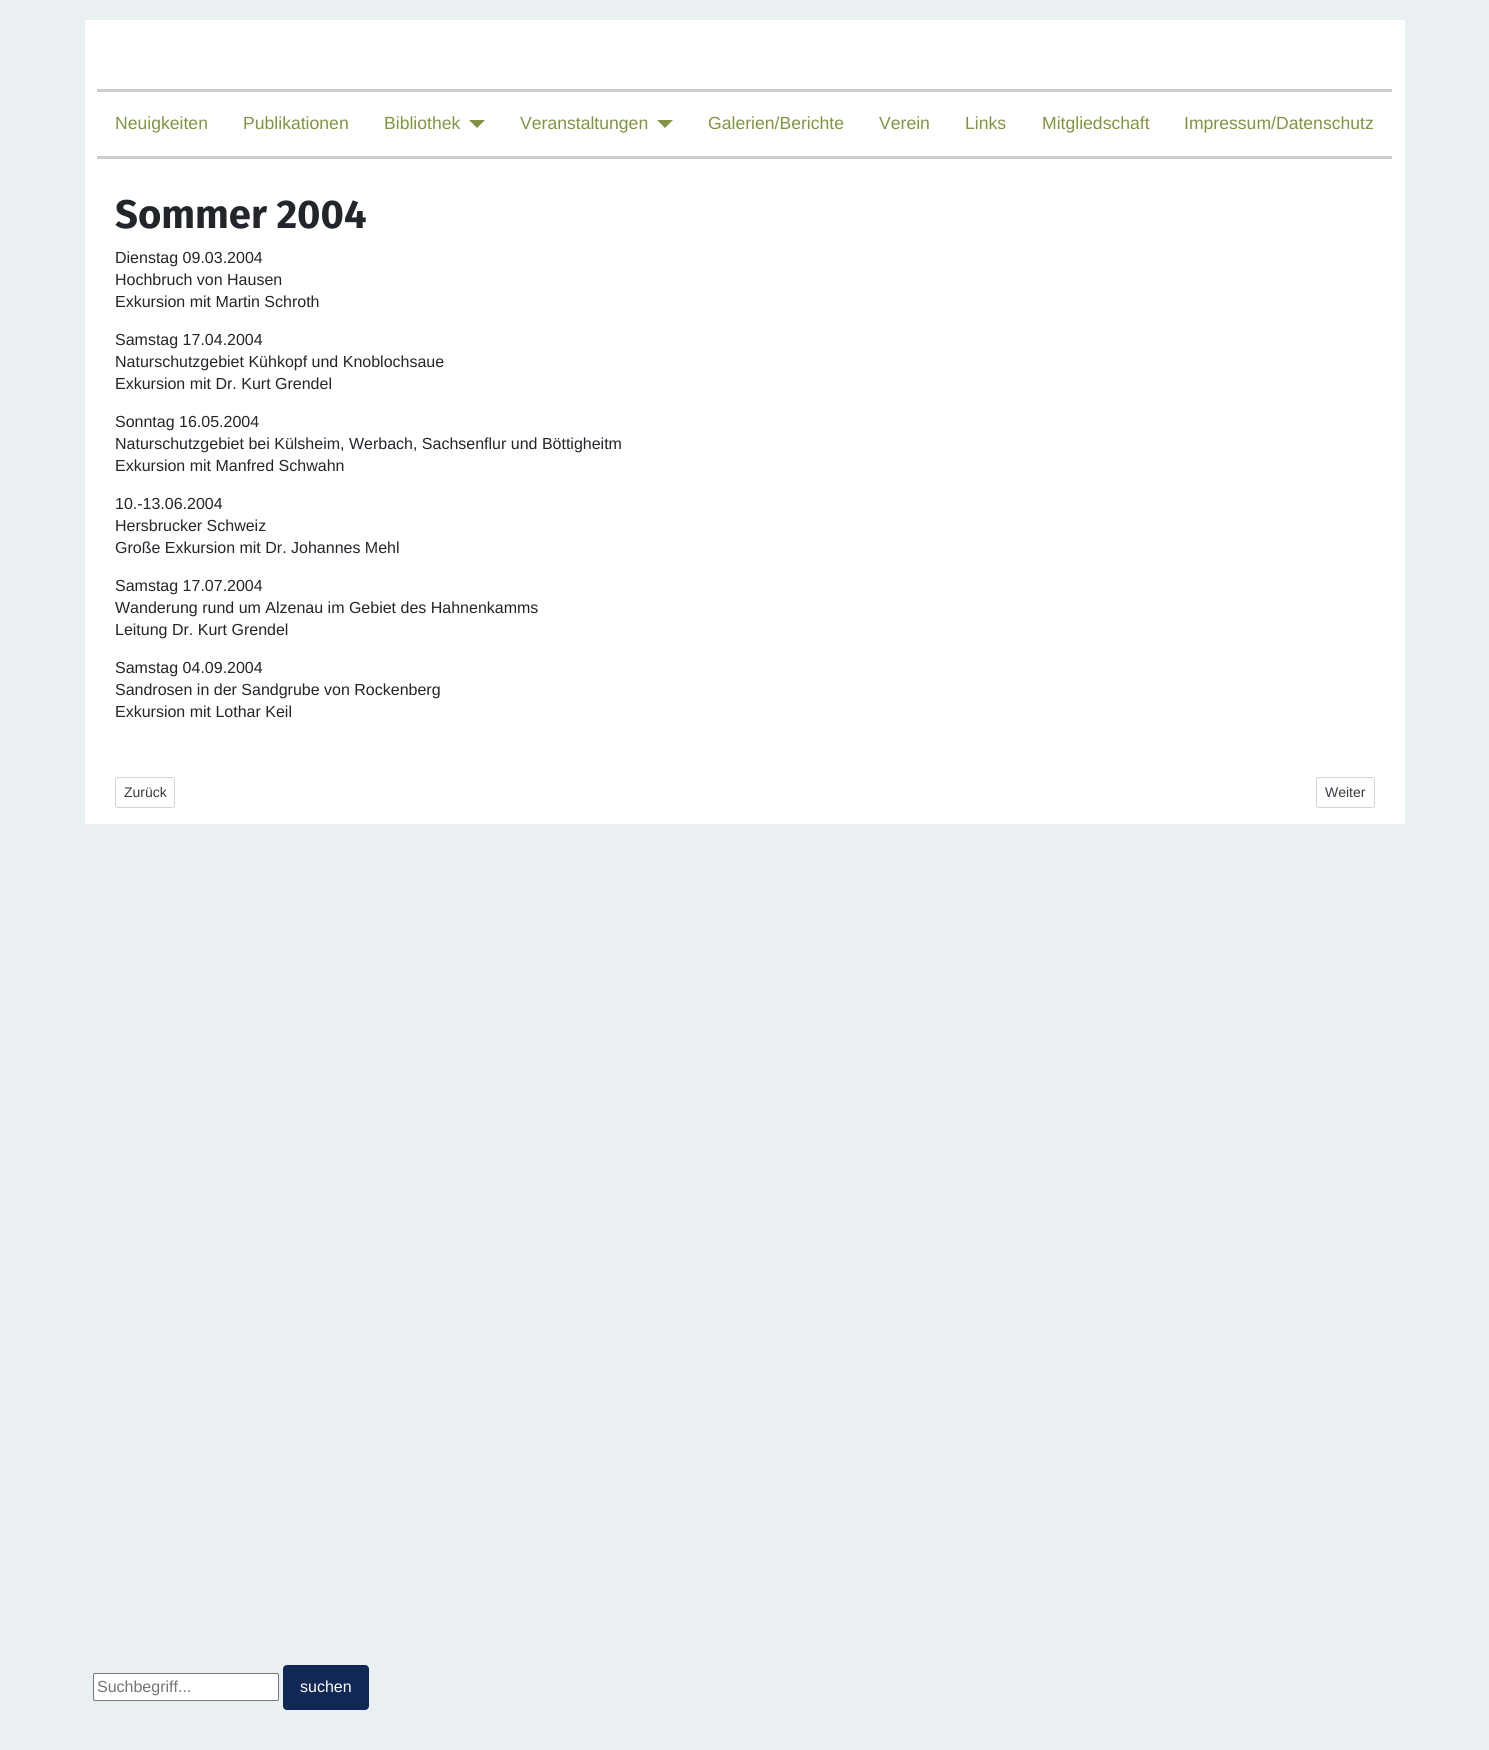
import math
import cairocffi as cairo

surface = cairo.ImageSurface(cairo.FORMAT_RGB24, 1489, 1750)
ctx = cairo.Context(surface)
options = cairo.FontOptions()
options.set_hint_metrics(cairo.HINT_METRICS_OFF)
options.set_hint_style(cairo.HINT_STYLE_NONE)
ctx.set_font_options(options)
ctx.set_miter_limit(4)


def rgb(r, g, b):
    ctx.set_source_rgb(r / 255, g / 255, b / 255)


def face(family, size, italic, bold):
    ctx.select_font_face(family, cairo.FONT_SLANT_ITALIC if italic else cairo.FONT_SLANT_NORMAL, cairo.FONT_WEIGHT_BOLD if bold else cairo.FONT_WEIGHT_NORMAL)
    ctx.set_font_size(size)


def label(x, y, s):
    ctx.move_to(x, y)
    ctx.show_text(s)


def rect(x, y, w, h):
    ctx.rectangle(x, y, w, h)
    ctx.fill()


def rrect(x, y, w, h, r):
    ctx.new_sub_path()
    for i, (u, v) in enumerate([(x + w - r, y + h - r), (x + r, y + h - r), (x + r, y + r), (x + w - r, y + r)]):
        ctx.arc(u, v, r, i * math.pi / 2, (i + 1) * math.pi / 2)
    ctx.close_path()


rgb(234, 239, 242)
ctx.paint()
rgb(255, 255, 255)
rect(85, 20, 1320, 155)
rgb(204, 204, 204)
rect(97, 89, 1295, 3)
rect(97, 156, 1295, 3)
face('Liberation Sans', 17.6, 0, 0)
rgb(127, 148, 65)
label(115, 129, 'Neuigkeiten')
label(243, 129, 'Publikationen')
label(384, 129, 'Bibliothek')
ctx.new_path()
ctx.move_to(469, 120)
ctx.line_to(485, 120)
ctx.line_to(477, 128)
ctx.close_path()
ctx.fill()
label(520, 129, 'Veranstaltungen')
ctx.new_path()
ctx.move_to(657, 120)
ctx.line_to(673, 120)
ctx.line_to(665, 128)
ctx.close_path()
ctx.fill()
label(708, 129, 'Galerien/Berichte')
label(879, 129, 'Verein')
label(965, 129, 'Links')
label(1042, 129, 'Mitgliedschaft')
label(1184, 129, 'Impressum/Datenschutz')
rgb(255, 255, 255)
rect(85, 175, 1320, 649)
face('Fira Sans', 40, 0, 1)
rgb(34, 38, 42)
label(115, 228, 'Sommer 2004')
face('Liberation Sans', 16, 0, 0)
label(115, 263, 'Dienstag 09.03.2004')
label(115, 285, 'Hochbruch von Hausen')
label(115, 307, 'Exkursion mit Martin Schroth')
label(115, 345, 'Samstag 17.04.2004')
label(115, 367, 'Naturschutzgebiet Kühkopf und Knoblochsaue')
label(115, 389, 'Exkursion mit Dr. Kurt Grendel')
label(115, 427, 'Sonntag 16.05.2004')
label(115, 449, 'Naturschutzgebiet bei Külsheim, Werbach, Sachsenflur und Böttigheitm')
label(115, 471, 'Exkursion mit Manfred Schwahn')
label(115, 509, '10.-13.06.2004')
label(115, 531, 'Hersbrucker Schweiz')
label(115, 553, 'Große Exkursion mit Dr. Johannes Mehl')
label(115, 591, 'Samstag 17.07.2004')
label(115, 613, 'Wanderung rund um Alzenau im Gebiet des Hahnenkamms')
label(115, 635, 'Leitung Dr. Kurt Grendel')
label(115, 673, 'Samstag 04.09.2004')
label(115, 695, 'Sandrosen in der Sandgrube von Rockenberg')
label(115, 717, 'Exkursion mit Lothar Keil')
rrect(115.5, 777.5, 59, 30, 2.5)
rgb(206, 212, 218)
ctx.set_line_width(1)
ctx.stroke()
face('Liberation Sans', 14, 0, 0)
rgb(53, 59, 65)
label(124, 797, 'Zurück')
rrect(1316.5, 777.5, 58, 30, 2.5)
rgb(206, 212, 218)
ctx.stroke()
rgb(53, 59, 65)
label(1325, 797, 'Weiter')
rgb(255, 255, 255)
rrect(93.5, 1673.5, 185, 27, 1.5)
ctx.fill_preserve()
rgb(118, 118, 118)
ctx.stroke()
face('Liberation Sans', 16, 0, 0)
rgb(117, 117, 117)
label(97, 1692, 'Suchbegriff...')
rgb(17, 40, 85)
rrect(283.5, 1665.5, 85, 44, 3.5)
ctx.fill_preserve()
ctx.stroke()
rgb(255, 255, 255)
label(300, 1692, 'suchen')
surface.write_to_png('render.png')
